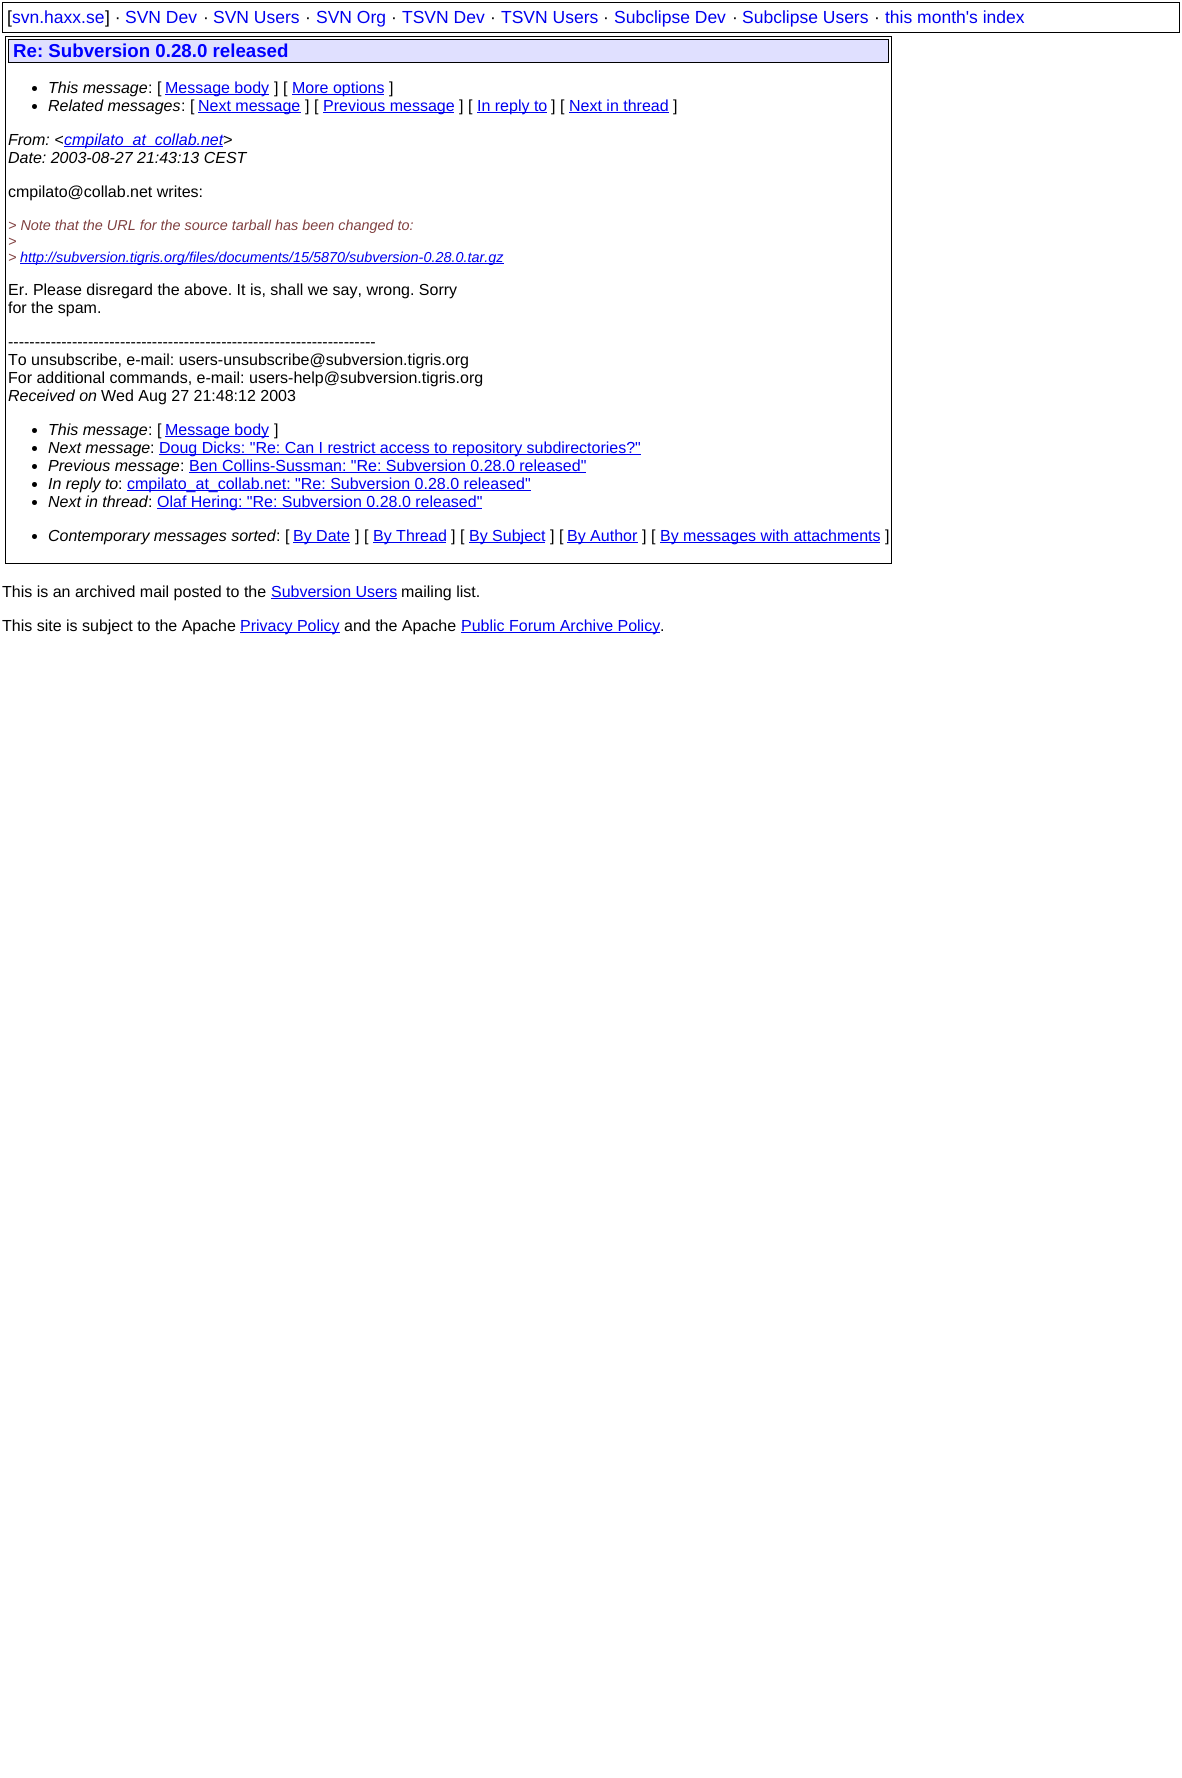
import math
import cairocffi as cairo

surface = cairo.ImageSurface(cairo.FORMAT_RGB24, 1182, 1778)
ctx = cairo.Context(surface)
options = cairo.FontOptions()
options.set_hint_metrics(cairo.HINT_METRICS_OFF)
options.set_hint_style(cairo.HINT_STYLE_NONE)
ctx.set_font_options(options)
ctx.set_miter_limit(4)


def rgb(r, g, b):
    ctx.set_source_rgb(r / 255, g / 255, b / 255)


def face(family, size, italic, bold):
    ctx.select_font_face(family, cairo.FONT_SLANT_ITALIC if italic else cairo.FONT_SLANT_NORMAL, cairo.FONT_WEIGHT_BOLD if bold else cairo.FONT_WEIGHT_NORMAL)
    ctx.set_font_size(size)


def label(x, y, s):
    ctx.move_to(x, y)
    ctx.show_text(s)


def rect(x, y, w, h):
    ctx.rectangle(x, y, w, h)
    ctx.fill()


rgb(255, 255, 255)
ctx.paint()
ctx.rectangle(2.5, 2.5, 1177, 30)
rgb(0, 0, 0)
ctx.set_line_width(1)
ctx.stroke()
face('Liberation Sans', 17.5, 0, 0)
label(7, 23, '[')
rgb(0, 0, 238)
label(12, 23, 'svn.haxx.se')
rgb(0, 0, 0)
label(105, 23, '] ·')
rgb(0, 0, 238)
label(125, 23, 'SVN Dev')
rgb(0, 0, 0)
label(203, 23, '·')
rgb(0, 0, 238)
label(213, 23, 'SVN Users')
rgb(0, 0, 0)
label(305, 23, '·')
rgb(0, 0, 238)
label(316, 23, 'SVN Org')
rgb(0, 0, 0)
label(391, 23, '·')
rgb(0, 0, 238)
label(402, 23, 'TSVN Dev')
rgb(0, 0, 0)
label(490, 23, '·')
rgb(0, 0, 238)
label(501, 23, 'TSVN Users')
rgb(0, 0, 0)
label(603, 23, '·')
rgb(0, 0, 238)
label(614, 23, 'Subclipse Dev')
rgb(0, 0, 0)
label(732, 23, '·')
rgb(0, 0, 238)
label(742, 23, 'Subclipse Users')
rgb(0, 0, 0)
label(874, 23, '·')
rgb(0, 0, 238)
label(885, 23, 'this month\'s index')
ctx.rectangle(5.5, 36.5, 886, 527)
rgb(0, 0, 0)
ctx.stroke()
rgb(224, 224, 255)
ctx.rectangle(8.5, 39.5, 880, 23)
ctx.fill_preserve()
rgb(0, 0, 0)
ctx.stroke()
face('Liberation Sans', 18.7, 0, 1)
rgb(0, 0, 255)
label(13, 57, 'Re: Subversion 0.28.0 released')
rgb(0, 0, 0)
ctx.new_path()
ctx.arc(34.5, 88.5, 2.5, 0, 2 * math.pi)
ctx.fill()
face('Liberation Sans', 16, 1, 0)
label(48, 93, 'This message')
face('Liberation Sans', 16, 0, 0)
label(148, 93, ': [')
rgb(0, 0, 238)
rect(165, 94, 104, 1)
label(165, 93, 'Message body')
rgb(0, 0, 0)
label(274, 93, '] [')
rgb(0, 0, 238)
rect(292, 94, 92, 1)
label(292, 93, 'More options')
rgb(0, 0, 0)
label(389, 93, ']')
ctx.new_path()
ctx.arc(34.5, 106.5, 2.5, 0, 2 * math.pi)
ctx.fill()
face('Liberation Sans', 16, 1, 0)
label(48, 111, 'Related messages')
face('Liberation Sans', 16, 0, 0)
label(181, 111, ': [')
rgb(0, 0, 238)
rect(198, 112, 103, 1)
label(198, 111, 'Next message')
rgb(0, 0, 0)
label(305, 111, '] [')
rgb(0, 0, 238)
rect(323, 112, 131, 1)
label(323, 111, 'Previous message')
rgb(0, 0, 0)
label(459, 111, '] [')
rgb(0, 0, 238)
rect(477, 112, 70, 1)
label(477, 111, 'In reply to')
rgb(0, 0, 0)
label(551, 111, '] [')
rgb(0, 0, 238)
label(569, 111, 'Next in thread')
rect(569, 112, 100, 1)
rgb(0, 0, 0)
label(673, 111, ']')
face('Liberation Sans', 16, 1, 0)
label(8, 145, 'From: <')
rgb(0, 0, 238)
rect(64, 146, 159, 1)
label(64, 145, 'cmpilato_at_collab.net')
rgb(0, 0, 0)
label(223, 145, '>')
label(8, 163, 'Date: 2003-08-27 21:43:13 CEST')
face('Liberation Sans', 16, 0, 0)
label(8, 197, 'cmpilato@collab.net writes:')
face('Liberation Sans', 14.4, 1, 0)
rgb(128, 64, 64)
label(8, 230, '> Note that the URL for the source tarball has been changed to:')
label(8, 246, '>')
label(8, 262, '>')
rgb(0, 0, 238)
rect(20, 263, 484, 1)
label(20, 262, 'http://subversion.tigris.org/files/documents/15/5870/subversion-0.28.0.tar.gz')
face('Liberation Sans', 16, 0, 0)
rgb(0, 0, 0)
label(8, 295, 'Er. Please disregard the above. It is, shall we say, wrong. Sorry')
label(8, 313, 'for the spam.')
label(8, 347, '---------------------------------------------------------------------')
label(8, 365, 'To unsubscribe, e-mail: users-unsubscribe@subversion.tigris.org')
label(8, 383, 'For additional commands, e-mail: users-help@subversion.tigris.org')
face('Liberation Sans', 16, 1, 0)
label(8, 401, 'Received on')
face('Liberation Sans', 16, 0, 0)
label(101, 401, 'Wed Aug 27 21:48:12 2003')
ctx.new_path()
ctx.arc(34.5, 430.5, 2.5, 0, 2 * math.pi)
ctx.fill()
face('Liberation Sans', 16, 1, 0)
label(48, 435, 'This message')
face('Liberation Sans', 16, 0, 0)
label(148, 435, ': [')
rgb(0, 0, 238)
rect(165, 436, 104, 1)
label(165, 435, 'Message body')
rgb(0, 0, 0)
label(274, 435, ']')
ctx.new_path()
ctx.arc(34.5, 448.5, 2.5, 0, 2 * math.pi)
ctx.fill()
face('Liberation Sans', 16, 1, 0)
label(48, 453, 'Next message')
face('Liberation Sans', 16, 0, 0)
label(150, 453, ':')
rgb(0, 0, 238)
rect(159, 454, 482, 1)
label(159, 453, 'Doug Dicks: "Re: Can I restrict access to repository subdirectories?"')
rgb(0, 0, 0)
ctx.new_path()
ctx.arc(34.5, 466.5, 2.5, 0, 2 * math.pi)
ctx.fill()
face('Liberation Sans', 16, 1, 0)
label(48, 471, 'Previous message')
face('Liberation Sans', 16, 0, 0)
label(180, 471, ':')
rgb(0, 0, 238)
label(189, 471, 'Ben Collins-Sussman: "Re: Subversion 0.28.0 released"')
rect(189, 472, 397, 1)
rgb(0, 0, 0)
ctx.new_path()
ctx.arc(34.5, 484.5, 2.5, 0, 2 * math.pi)
ctx.fill()
face('Liberation Sans', 16, 1, 0)
label(48, 489, 'In reply to')
face('Liberation Sans', 16, 0, 0)
label(118, 489, ':')
rgb(0, 0, 238)
rect(127, 490, 404, 1)
label(127, 489, 'cmpilato_at_collab.net: "Re: Subversion 0.28.0 released"')
rgb(0, 0, 0)
ctx.new_path()
ctx.arc(34.5, 502.5, 2.5, 0, 2 * math.pi)
ctx.fill()
face('Liberation Sans', 16, 1, 0)
label(48, 507, 'Next in thread')
face('Liberation Sans', 16, 0, 0)
label(148, 507, ':')
rgb(0, 0, 238)
rect(157, 508, 325, 1)
label(157, 507, 'Olaf Hering: "Re: Subversion 0.28.0 released"')
rgb(0, 0, 0)
ctx.new_path()
ctx.arc(34.5, 536.5, 2.5, 0, 2 * math.pi)
ctx.fill()
face('Liberation Sans', 16, 1, 0)
label(48, 541, 'Contemporary messages sorted')
face('Liberation Sans', 16, 0, 0)
label(276, 541, ': [')
rgb(0, 0, 238)
rect(293, 542, 57, 1)
label(293, 541, 'By Date')
rgb(0, 0, 0)
label(355, 541, '] [')
rgb(0, 0, 238)
rect(373, 542, 73, 1)
label(373, 541, 'By Thread')
rgb(0, 0, 0)
label(451, 541, '] [')
rgb(0, 0, 238)
rect(469, 542, 76, 1)
label(469, 541, 'By Subject')
rgb(0, 0, 0)
label(550, 541, '] [')
rgb(0, 0, 238)
rect(567, 542, 71, 1)
label(567, 541, 'By Author')
rgb(0, 0, 0)
label(642, 541, '] [')
rgb(0, 0, 238)
rect(660, 542, 220, 1)
label(660, 541, 'By messages with attachments')
rgb(0, 0, 0)
label(885, 541, ']')
label(2, 597, 'This is an archived mail posted to the')
rgb(0, 0, 238)
label(271, 597, 'Subversion Users')
rect(271, 598, 126, 1)
rgb(0, 0, 0)
label(401, 597, 'mailing list.')
label(2, 631, 'This site is subject to the Apache')
rgb(0, 0, 238)
rect(240, 632, 100, 1)
label(240, 631, 'Privacy Policy')
rgb(0, 0, 0)
label(344, 631, 'and the Apache')
rgb(0, 0, 238)
rect(461, 632, 199, 1)
label(461, 631, 'Public Forum Archive Policy')
rgb(0, 0, 0)
label(660, 631, '.')
surface.write_to_png('render.png')
